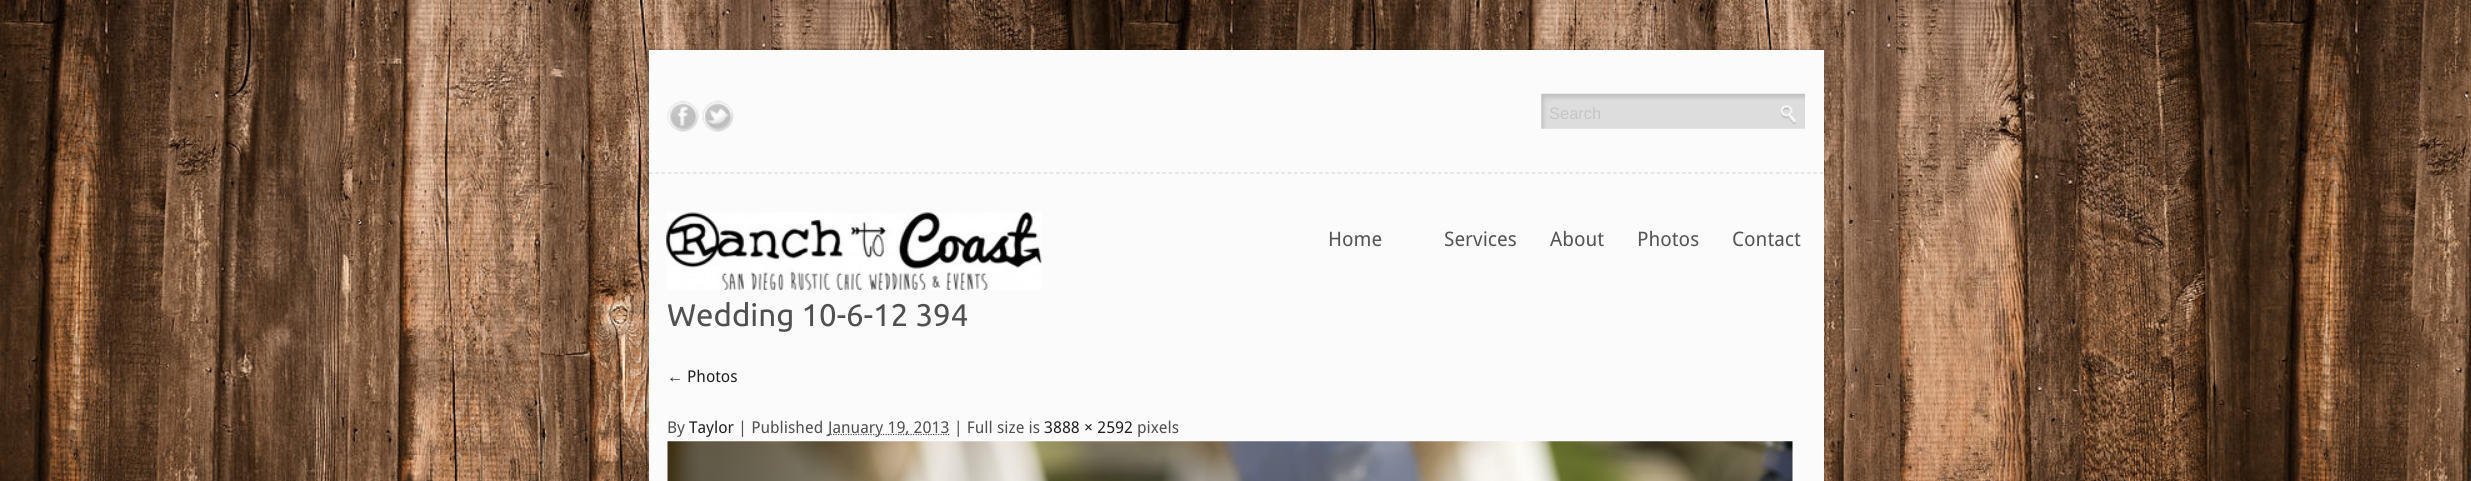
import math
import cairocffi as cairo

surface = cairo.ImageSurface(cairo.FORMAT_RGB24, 2471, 481)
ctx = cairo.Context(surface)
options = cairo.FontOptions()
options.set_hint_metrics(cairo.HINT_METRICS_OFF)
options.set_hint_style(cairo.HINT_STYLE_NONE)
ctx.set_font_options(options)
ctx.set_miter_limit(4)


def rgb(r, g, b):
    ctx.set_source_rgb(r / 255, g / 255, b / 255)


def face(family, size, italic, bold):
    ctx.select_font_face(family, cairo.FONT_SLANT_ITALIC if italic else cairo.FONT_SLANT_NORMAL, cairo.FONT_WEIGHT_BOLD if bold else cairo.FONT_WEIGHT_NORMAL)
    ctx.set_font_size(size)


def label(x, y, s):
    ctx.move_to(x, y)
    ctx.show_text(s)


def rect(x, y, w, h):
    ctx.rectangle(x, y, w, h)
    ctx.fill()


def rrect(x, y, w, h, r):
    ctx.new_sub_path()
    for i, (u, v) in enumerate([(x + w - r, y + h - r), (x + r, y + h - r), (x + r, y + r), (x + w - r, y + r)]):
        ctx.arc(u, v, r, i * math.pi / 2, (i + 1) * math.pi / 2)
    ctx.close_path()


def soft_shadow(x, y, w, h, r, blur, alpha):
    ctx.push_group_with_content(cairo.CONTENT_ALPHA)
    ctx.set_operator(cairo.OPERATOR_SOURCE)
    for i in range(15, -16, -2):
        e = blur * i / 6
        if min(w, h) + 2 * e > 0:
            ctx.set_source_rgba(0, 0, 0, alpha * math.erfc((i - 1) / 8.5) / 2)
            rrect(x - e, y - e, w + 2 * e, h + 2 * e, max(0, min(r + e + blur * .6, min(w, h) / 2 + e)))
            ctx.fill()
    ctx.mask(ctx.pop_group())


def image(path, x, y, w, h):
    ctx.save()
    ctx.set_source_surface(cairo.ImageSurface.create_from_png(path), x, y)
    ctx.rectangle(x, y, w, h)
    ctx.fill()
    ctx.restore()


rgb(255, 255, 255)
ctx.paint()
image('image0.png', 0, 0, 2471, 481)
rgb(0, 0, 0)
soft_shadow(646, 48, 1180, 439, 0, 2, 0.1)
rgb(251, 251, 251)
rect(649, 50, 1175, 431)
ctx.new_path()
ctx.move_to(649, 173)
ctx.line_to(1824, 173)
rgb(217, 217, 217)
ctx.set_line_width(1.2)
ctx.set_dash([3.75, 2.51])
ctx.stroke()
image('image1.png', 667, 100, 32, 32)
image('image2.png', 702, 100, 32, 32)
image('image3.png', 1541, 93, 264, 36)
face('Liberation Sans', 16.5, 0, 0)
rgb(197, 197, 197)
label(1549, 119, 'Search')
image('image4.png', 1780, 105, 17, 20)
image('image5.png', 666, 212, 376, 78)
face('Droid Sans', 20, 0, 0)
rgb(86, 86, 86)
label(1328, 246, 'Home')
label(1444, 246, 'Services')
label(1550, 246, 'About')
label(1637, 246, 'Photos')
label(1732, 246, 'Contact')
face('Ubuntu', 31.25, 0, 0)
rgb(80, 80, 80)
label(667, 326, 'Wedding 10-6-12 394')
face('Liberation Serif', 16.25, 0, 0)
rgb(34, 34, 34)
label(667, 382, '←')
face('Droid Sans', 16.25, 0, 0)
label(687, 382, 'Photos')
rgb(80, 80, 80)
label(667, 433, 'By')
rgb(34, 34, 34)
label(689, 433, 'Taylor')
rgb(80, 80, 80)
label(738, 433, '| Published')
ctx.new_path()
ctx.move_to(828, 434.5)
ctx.line_to(949.5, 434.5)
rgb(85, 85, 85)
ctx.set_dash([1.25, 1.25])
ctx.stroke()
rgb(80, 80, 80)
label(828, 433, 'January 19, 2013 | Full size is')
rgb(34, 34, 34)
label(1044, 433, '3888 × 2592')
rgb(80, 80, 80)
label(1137, 433, 'pixels')
image('image6.png', 667, 441, 1126, 40)
surface.write_to_png('render.png')
